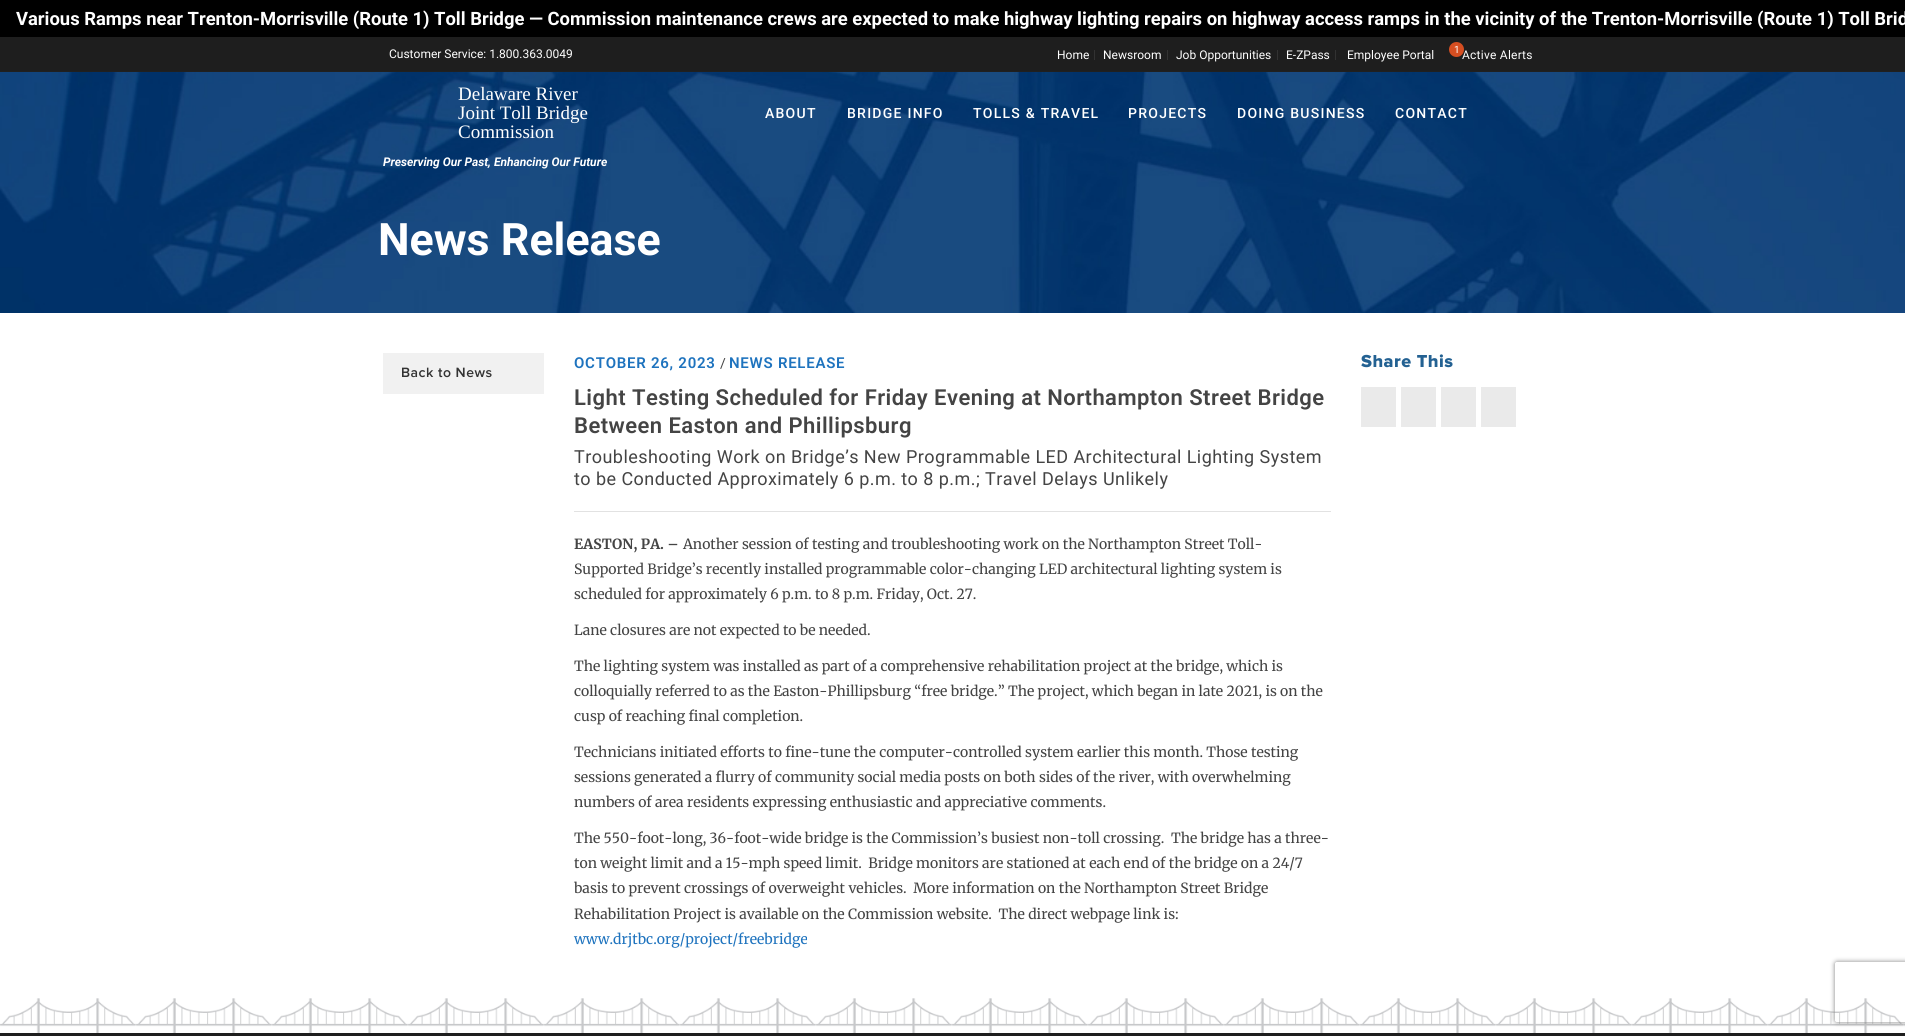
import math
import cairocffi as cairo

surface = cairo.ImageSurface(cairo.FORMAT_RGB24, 1905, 1036)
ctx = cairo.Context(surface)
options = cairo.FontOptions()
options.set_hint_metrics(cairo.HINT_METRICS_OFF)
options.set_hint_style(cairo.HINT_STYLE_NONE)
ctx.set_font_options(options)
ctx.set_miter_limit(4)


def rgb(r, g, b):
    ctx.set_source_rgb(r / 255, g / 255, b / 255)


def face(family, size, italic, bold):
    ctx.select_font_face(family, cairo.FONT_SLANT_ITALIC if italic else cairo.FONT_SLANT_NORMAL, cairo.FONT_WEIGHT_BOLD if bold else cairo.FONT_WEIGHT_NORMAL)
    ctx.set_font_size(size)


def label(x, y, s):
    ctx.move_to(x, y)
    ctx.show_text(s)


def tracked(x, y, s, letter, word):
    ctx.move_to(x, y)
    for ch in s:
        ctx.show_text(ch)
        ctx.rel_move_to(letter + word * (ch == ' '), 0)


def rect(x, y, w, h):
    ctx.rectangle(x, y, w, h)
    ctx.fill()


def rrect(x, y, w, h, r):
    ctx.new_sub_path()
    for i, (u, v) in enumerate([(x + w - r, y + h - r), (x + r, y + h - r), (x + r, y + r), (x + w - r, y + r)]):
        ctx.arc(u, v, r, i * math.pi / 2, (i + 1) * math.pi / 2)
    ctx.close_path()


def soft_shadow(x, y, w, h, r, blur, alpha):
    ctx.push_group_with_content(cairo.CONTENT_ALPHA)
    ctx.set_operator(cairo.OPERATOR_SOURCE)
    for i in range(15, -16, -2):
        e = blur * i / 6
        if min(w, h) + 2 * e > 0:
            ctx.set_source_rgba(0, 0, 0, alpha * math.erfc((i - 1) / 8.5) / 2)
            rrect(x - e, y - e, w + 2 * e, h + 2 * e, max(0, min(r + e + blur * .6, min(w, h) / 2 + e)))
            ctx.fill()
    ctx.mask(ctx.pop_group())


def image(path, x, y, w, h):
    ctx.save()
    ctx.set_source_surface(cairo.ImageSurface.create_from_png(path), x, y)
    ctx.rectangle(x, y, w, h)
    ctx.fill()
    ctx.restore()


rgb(255, 255, 255)
ctx.paint()
rgb(0, 0, 0)
rect(0, 0, 1905, 37)
face('Roboto', 18.4, 0, 1)
rgb(255, 255, 255)
label(16, 25, 'Various Ramps near Trenton-Morrisville (Route 1) Toll Bridge — Commission maintenance crews are expected to make highway lighting repairs on highway access ramps in the vicinity of the Trenton-Morrisville (Route 1) Toll Brid')
rgb(30, 30, 30)
rect(0, 37, 1905, 34)
rgb(32, 32, 32)
rect(0, 71, 1905, 1)
face('Roboto', 12, 0, 0)
rgb(255, 255, 255)
label(389, 58, 'Customer Service: 1.800.363.0049')
rgb(50, 50, 50)
rect(1094, 50, 1, 10)
rgb(255, 255, 255)
label(1057, 59, 'Home')
rgb(50, 50, 50)
rect(1167, 50, 1, 10)
rgb(255, 255, 255)
label(1103, 59, 'Newsroom')
rgb(50, 50, 50)
rect(1277, 50, 1, 10)
rgb(255, 255, 255)
label(1176, 59, 'Job Opportunities')
rgb(50, 50, 50)
rect(1335, 50, 1, 10)
rgb(255, 255, 255)
label(1286, 59, 'E-ZPass')
label(1347, 59, 'Employee Portal')
rgb(213, 78, 33)
ctx.new_path()
ctx.arc(1456.5, 49.5, 7.5, 0, 2 * math.pi)
ctx.fill()
face('Roboto', 10, 0, 0)
rgb(255, 255, 255)
label(1454, 53, '1')
face('Roboto', 12, 0, 0)
tracked(1462, 59, 'Active Alerts', 0.25, 0)
image('image0.png', 0, 72, 1905, 241)
face('Liberation Serif', 19, 0, 0)
label(458, 100, 'Delaware River')
label(458, 119, 'Joint Toll Bridge')
label(458, 138, 'Commission')
face('Roboto', 12, 1, 1)
label(383, 166, 'Preserving Our Past, Enhancing Our Future')
face('Roboto Medium', 14, 0, 0)
tracked(765, 118, 'ABOUT', 1.25, 0)
tracked(847, 118, 'BRIDGE INFO', 1.25, 0)
tracked(973, 118, 'TOLLS & TRAVEL', 1.25, 0)
tracked(1128, 118, 'PROJECTS', 1.25, 0)
tracked(1237, 118, 'DOING BUSINESS', 1.25, 0)
tracked(1395, 118, 'CONTACT', 1.25, 0)
face('Roboto', 44.75, 0, 1)
label(378, 255, 'News Release')
rgb(241, 241, 241)
rect(383, 353, 161, 41)
face('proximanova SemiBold', 14, 0, 0)
rgb(51, 51, 51)
tracked(401, 377, 'Back to News', 0.5, 0)
rgb(226, 226, 226)
rect(574, 511, 757, 1)
face('Roboto SemiBold', 15, 0, 0)
rgb(30, 115, 190)
tracked(574, 368, 'OCTOBER 26, 2023', 0.75, 0)
face('Roboto', 14, 0, 0)
rgb(68, 68, 68)
label(720, 368, '/')
face('Roboto SemiBold', 15, 0, 0)
rgb(30, 115, 190)
tracked(729, 368, 'NEWS RELEASE', 0.75, 0)
face('Roboto SemiBold', 22, 0, 0)
rgb(68, 68, 68)
tracked(574, 405, 'Light Testing Scheduled for Friday Evening at Northampton Street Bridge', 0.45, 0)
tracked(574, 433, 'Between Easton and Phillipsburg', 0.45, 0)
face('Roboto', 18, 0, 0)
tracked(574, 463, 'Troubleshooting Work on Bridge’s New Programmable LED Architectural Lighting System', 0.45, 0)
tracked(574, 485, 'to be Conducted Approximately 6 p.m. to 8 p.m.; Travel Delays Unlikely', 0.45, 0)
face('Merriweather', 14, 0, 1)
tracked(574, 549, 'EASTON, PA. –', 0.1, 0)
face('Merriweather', 14, 0, 0)
label(683, 549, 'Another session of testing and troubleshooting work on the Northampton Street Toll-')
label(574, 574, 'Supported Bridge’s recently installed programmable color-changing LED architectural lighting system is')
label(574, 599, 'scheduled for approximately 6 p.m. to 8 p.m. Friday, Oct. 27.')
label(574, 635, 'Lane closures are not expected to be needed.')
label(574, 671, 'The lighting system was installed as part of a comprehensive rehabilitation project at the bridge, which is')
label(574, 696, 'colloquially referred to as the Easton-Phillipsburg “free bridge.” The project, which began in late 2021, is on the')
label(574, 721, 'cusp of reaching final completion.')
label(574, 757, 'Technicians initiated efforts to fine-tune the computer-controlled system earlier this month. Those testing')
label(574, 782, 'sessions generated a flurry of community social media posts on both sides of the river, with overwhelming')
label(574, 807, 'numbers of area residents expressing enthusiastic and appreciative comments.')
label(574, 843, 'The 550-foot-long, 36-foot-wide bridge is the Commission’s busiest non-toll crossing.  The bridge has a three-')
label(574, 868, 'ton weight limit and a 15-mph speed limit.  Bridge monitors are stationed at each end of the bridge on a 24/7')
label(574, 893, 'basis to prevent crossings of overweight vehicles.  More information on the Northampton Street Bridge')
label(574, 919, 'Rehabilitation Project is available on the Commission website.  The direct webpage link is:')
rgb(30, 115, 190)
label(574, 944, 'www.drjtbc.org/project/freebridge')
face('proximanova ExtraBold', 18, 0, 0)
rgb(35, 97, 146)
tracked(1361, 367, 'Share This', 0.5, 0)
rgb(234, 234, 234)
rect(1361, 387, 35, 40)
rect(1401, 387, 35, 40)
rect(1441, 387, 35, 40)
rect(1481, 387, 35, 40)
rgb(30, 30, 30)
rect(0, 1033, 1905, 3)
image('image1.png', 0, 998, 1905, 35)
ctx.save()
ctx.set_fill_rule(cairo.FILL_RULE_EVEN_ODD)
ctx.new_path()
ctx.move_to(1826, 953)
ctx.line_to(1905, 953)
ctx.line_to(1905, 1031)
ctx.line_to(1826, 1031)
ctx.close_path()
ctx.move_to(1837, 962)
ctx.line_to(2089, 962)
ctx.curve_to(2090, 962, 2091, 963, 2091, 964)
ctx.line_to(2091, 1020)
ctx.curve_to(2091, 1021, 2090, 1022, 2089, 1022)
ctx.line_to(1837, 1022)
ctx.curve_to(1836, 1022, 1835, 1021, 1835, 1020)
ctx.line_to(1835, 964)
ctx.curve_to(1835, 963, 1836, 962, 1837, 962)
ctx.close_path()
ctx.clip()
rgb(128, 128, 128)
soft_shadow(1835, 962, 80, 60, 2, 2.5, 1)
ctx.restore()
surface.write_to_png('render.png')
